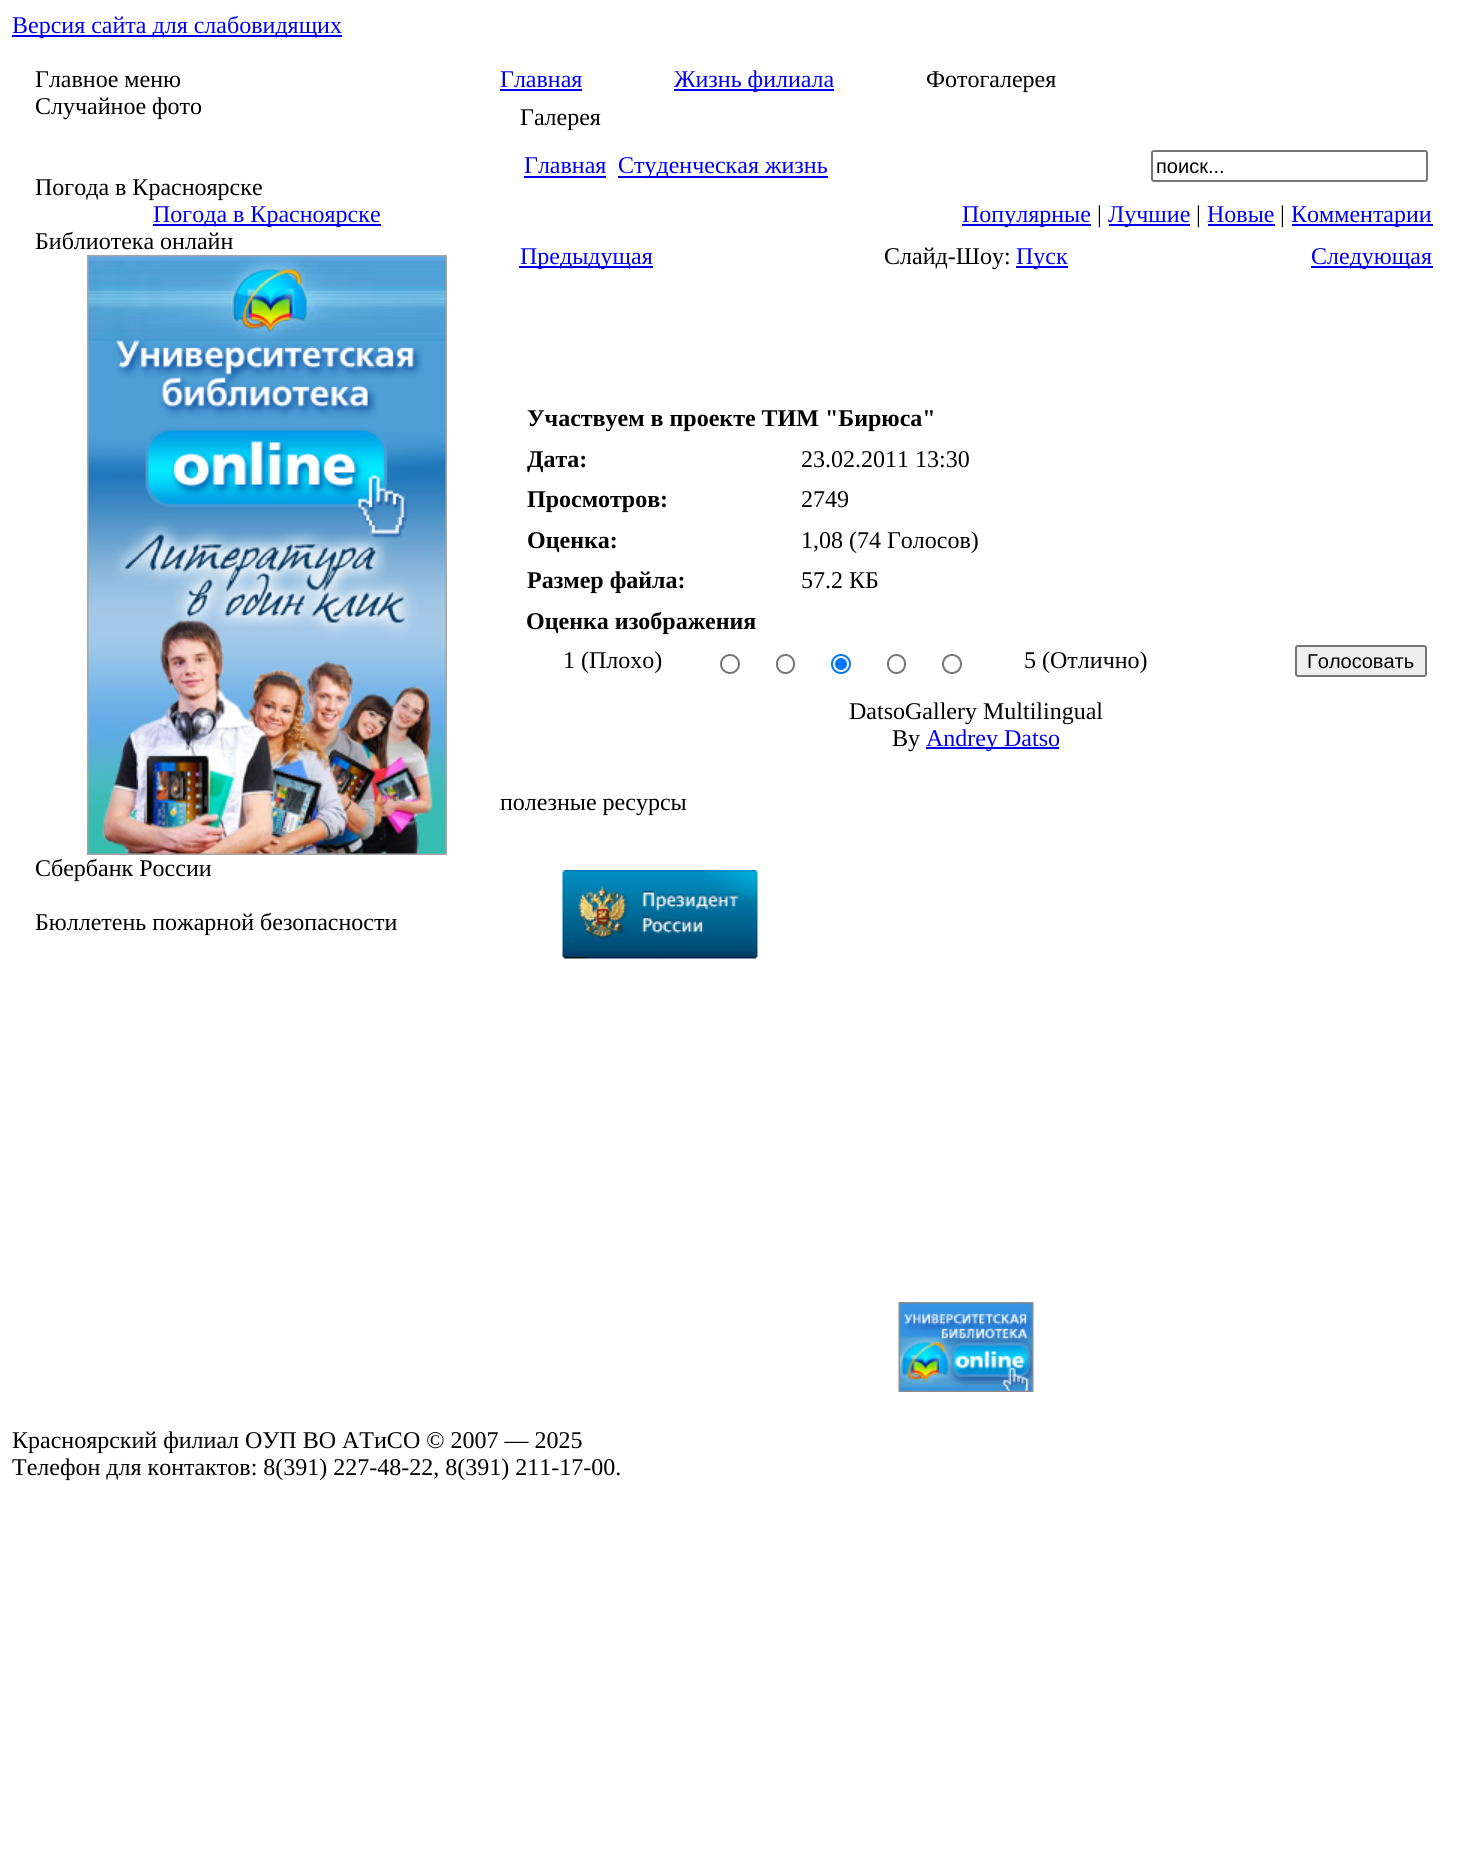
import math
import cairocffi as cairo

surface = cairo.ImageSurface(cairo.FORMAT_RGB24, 1464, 1858)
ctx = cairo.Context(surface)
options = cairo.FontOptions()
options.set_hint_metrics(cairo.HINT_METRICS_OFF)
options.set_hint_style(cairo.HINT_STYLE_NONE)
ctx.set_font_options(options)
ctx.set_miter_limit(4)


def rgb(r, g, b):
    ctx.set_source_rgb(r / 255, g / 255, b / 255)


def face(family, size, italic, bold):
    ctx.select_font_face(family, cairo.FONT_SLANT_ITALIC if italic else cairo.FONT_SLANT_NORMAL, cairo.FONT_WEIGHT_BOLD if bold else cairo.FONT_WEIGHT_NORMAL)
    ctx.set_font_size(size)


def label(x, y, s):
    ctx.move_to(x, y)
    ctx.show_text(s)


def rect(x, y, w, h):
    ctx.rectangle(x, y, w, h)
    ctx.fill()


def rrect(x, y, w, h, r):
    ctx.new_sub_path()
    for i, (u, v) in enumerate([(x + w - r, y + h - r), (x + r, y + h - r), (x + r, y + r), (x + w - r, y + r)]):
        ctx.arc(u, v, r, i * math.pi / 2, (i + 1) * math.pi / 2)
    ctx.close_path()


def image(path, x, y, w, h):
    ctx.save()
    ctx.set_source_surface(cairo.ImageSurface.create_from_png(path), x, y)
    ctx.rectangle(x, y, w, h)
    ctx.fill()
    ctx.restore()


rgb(255, 255, 255)
ctx.paint()
rgb(0, 0, 238)
rect(12, 35, 330, 2)
face('Liberation Serif', 24, 0, 0)
label(12, 33, 'Версия сайта для слабовидящих')
rgb(0, 0, 0)
label(35, 87, 'Главное меню')
label(35, 114, 'Случайное фото')
label(35, 195, 'Погода в Красноярске')
rgb(0, 0, 238)
rect(153, 224, 228, 2)
label(153, 222, 'Погода в Красноярске')
rgb(0, 0, 0)
label(35, 249, 'Библиотека онлайн')
image('image0.png', 87, 255, 360, 600)
label(35, 876, 'Сбербанк России')
label(35, 930, 'Бюллетень пожарной безопасности')
rgb(0, 0, 238)
label(500, 87, 'Главная')
rect(500, 89, 82, 2)
rect(674, 89, 160, 2)
label(674, 87, 'Жизнь филиала')
rgb(0, 0, 0)
label(926, 87, 'Фотогалерея')
label(520, 125, 'Галерея')
rgb(0, 0, 238)
label(524, 173, 'Главная')
rect(524, 176, 82, 2)
rect(618, 176, 210, 2)
label(618, 173, 'Студенческая жизнь')
rrect(1152, 151, 275, 30, 2)
rgb(118, 118, 118)
ctx.stroke()
face('Liberation Sans', 20, 0, 0)
rgb(0, 0, 0)
label(1156, 173, 'поиск...')
rgb(0, 0, 238)
rect(962, 224, 129, 2)
face('Liberation Serif', 24, 0, 0)
label(962, 222, 'Популярные')
rgb(0, 0, 0)
label(1097, 222, '|')
rgb(0, 0, 238)
rect(1109, 224, 81, 2)
label(1108, 222, 'Лучшие')
rgb(0, 0, 0)
label(1196, 222, '|')
rgb(0, 0, 238)
label(1207, 222, 'Новые')
rect(1208, 224, 67, 2)
rgb(0, 0, 0)
label(1280, 222, '|')
rgb(0, 0, 238)
rect(1292, 224, 141, 2)
label(1291, 222, 'Комментарии')
rect(519, 266, 134, 2)
label(520, 264, 'Предыдущая')
rgb(0, 0, 0)
label(884, 264, 'Слайд-Шоу:')
rgb(0, 0, 238)
rect(1016, 266, 52, 2)
label(1016, 264, 'Пуск')
rect(1311, 266, 122, 2)
label(1311, 264, 'Следующая')
face('Liberation Serif', 24, 0, 1)
rgb(0, 0, 0)
label(527, 426, 'Участвуем в проекте ТИМ "Бирюса"')
label(527, 467, 'Дата:')
face('Liberation Serif', 24, 0, 0)
label(801, 467, '23.02.2011 13:30')
face('Liberation Serif', 24, 0, 1)
label(527, 507, 'Просмотров:')
face('Liberation Serif', 24, 0, 0)
label(801, 507, '2749')
face('Liberation Serif', 24, 0, 1)
label(527, 548, 'Оценка:')
face('Liberation Serif', 24, 0, 0)
label(801, 548, '1,08 (74 Голосов)')
face('Liberation Serif', 24, 0, 1)
label(527, 588, 'Размер файла:')
face('Liberation Serif', 24, 0, 0)
label(801, 588, '57.2 КБ')
face('Liberation Serif', 24, 0, 1)
label(526, 629, 'Оценка изображения')
face('Liberation Serif', 24, 0, 0)
label(563, 668, '1 (Плохо)')
ctx.new_path()
ctx.arc(730, 664, 9, 0, 2 * math.pi)
rgb(118, 118, 118)
ctx.stroke()
rrect(777, 655, 17, 18, 8.5)
ctx.stroke()
ctx.arc(841, 664, 9, 0, 2 * math.pi)
rgb(0, 117, 255)
ctx.stroke()
ctx.arc(841, 664, 6, 0, 2 * math.pi)
ctx.fill()
rrect(888, 655, 17, 18, 8.5)
rgb(118, 118, 118)
ctx.stroke()
ctx.arc(952, 664, 9, 0, 2 * math.pi)
ctx.stroke()
rgb(0, 0, 0)
label(1024, 668, '5 (Отлично)')
rgb(239, 239, 239)
rrect(1296, 646, 130, 30, 2)
ctx.fill_preserve()
rgb(118, 118, 118)
ctx.stroke()
face('Liberation Sans', 20, 0, 0)
rgb(0, 0, 0)
label(1307, 668, 'Голосовать')
face('Liberation Serif', 24, 0, 0)
label(849, 719, 'DatsoGallery Multilingual')
label(892, 746, 'By')
rgb(0, 0, 238)
rect(926, 747, 133, 2)
label(926, 746, 'Andrey Datso')
rgb(0, 0, 0)
label(500, 810, 'полезные ресурсы')
image('image1.png', 562, 870, 196, 89)
image('image2.png', 898, 1302, 136, 90)
label(12, 1448, 'Красноярский филиал ОУП ВО АТиСО © 2007 — 2025')
label(12, 1475, 'Телефон для контактов: 8(391) 227-48-22, 8(391) 211-17-00.')
surface.write_to_png('render.png')
